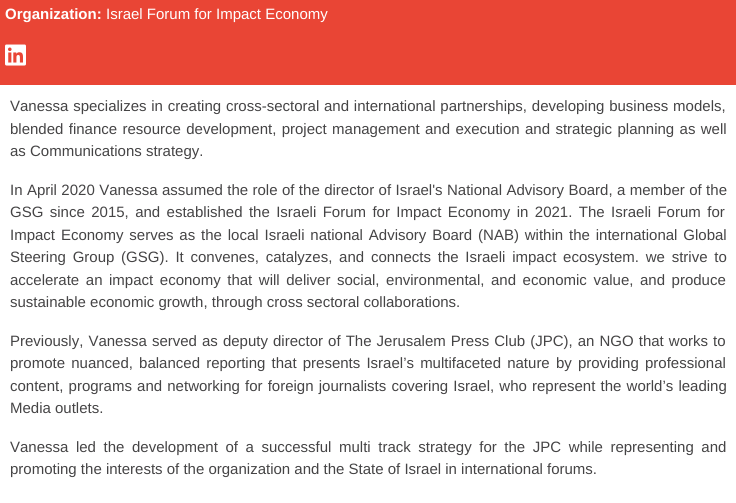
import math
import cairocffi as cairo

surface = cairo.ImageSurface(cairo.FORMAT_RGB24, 736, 503)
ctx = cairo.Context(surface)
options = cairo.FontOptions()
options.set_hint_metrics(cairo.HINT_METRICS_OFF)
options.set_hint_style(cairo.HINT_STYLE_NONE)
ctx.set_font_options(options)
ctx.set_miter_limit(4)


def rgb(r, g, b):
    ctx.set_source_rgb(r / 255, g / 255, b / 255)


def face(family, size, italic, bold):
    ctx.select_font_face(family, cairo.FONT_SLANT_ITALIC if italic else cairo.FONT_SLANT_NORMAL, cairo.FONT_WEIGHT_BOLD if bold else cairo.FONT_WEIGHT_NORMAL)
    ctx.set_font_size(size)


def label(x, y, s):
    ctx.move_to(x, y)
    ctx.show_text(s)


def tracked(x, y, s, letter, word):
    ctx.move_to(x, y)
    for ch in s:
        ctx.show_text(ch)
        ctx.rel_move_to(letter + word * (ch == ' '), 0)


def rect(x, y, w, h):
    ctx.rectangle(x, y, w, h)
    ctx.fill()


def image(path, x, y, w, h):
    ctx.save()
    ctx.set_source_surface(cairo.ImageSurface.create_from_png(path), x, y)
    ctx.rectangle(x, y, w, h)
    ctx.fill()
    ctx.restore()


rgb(255, 255, 255)
ctx.paint()
rgb(233, 69, 53)
rect(0, 0, 736, 85)
face('Liberation Sans', 15, 0, 1)
rgb(255, 255, 255)
label(5, 19, 'Organization:')
face('Liberation Sans', 15, 0, 0)
label(106, 19, 'Israel Forum for Impact Economy')
image('image0.png', 5, 44, 21, 22)
rgb(69, 68, 69)
tracked(10, 111, 'Vanessa specializes in creating cross-sectoral and international partnerships, developing business models,', 0, 0.6)
tracked(10, 134, 'blended finance resource development, project management and execution and strategic planning as well', 0, 1.2)
label(10, 156, 'as Communications strategy.')
tracked(10, 195, 'In April 2020 Vanessa assumed the role of the director of Israel\'s National Advisory Board, a member of the', 0, 0.25)
tracked(10, 217, 'GSG since 2015, and established the Israeli Forum for Impact Economy in 2021. The Israeli Forum for', 0, 2.25)
tracked(10, 240, 'Impact Economy serves as the local Israeli national Advisory Board (NAB) within the international Global', 0, 1.7)
tracked(10, 262, 'Steering Group (GSG). It convenes, catalyzes, and connects the Israeli impact ecosystem. we strive to', 0, 2.6)
tracked(10, 285, 'accelerate an impact economy that will deliver social, environmental, and economic value, and produce', 0, 2.4)
label(10, 307, 'sustainable economic growth, through cross sectoral collaborations.')
tracked(10, 346, 'Previously, Vanessa served as deputy director of The Jerusalem Press Club (JPC), an NGO that works to', 0, 0.9)
tracked(10, 368, 'promote nuanced, balanced reporting that presents Israel’s multifaceted nature by providing professional', 0, 2)
tracked(10, 391, 'content, programs and networking for foreign journalists covering Israel, who represent the world’s leading', 0, 1)
label(10, 413, 'Media outlets.')
tracked(10, 452, 'Vanessa led the development of a successful multi track strategy for the JPC while representing and', 0, 3.4)
label(10, 474, 'promoting the interests of the organization and the State of Israel in international forums.')
surface.write_to_png('render.png')
